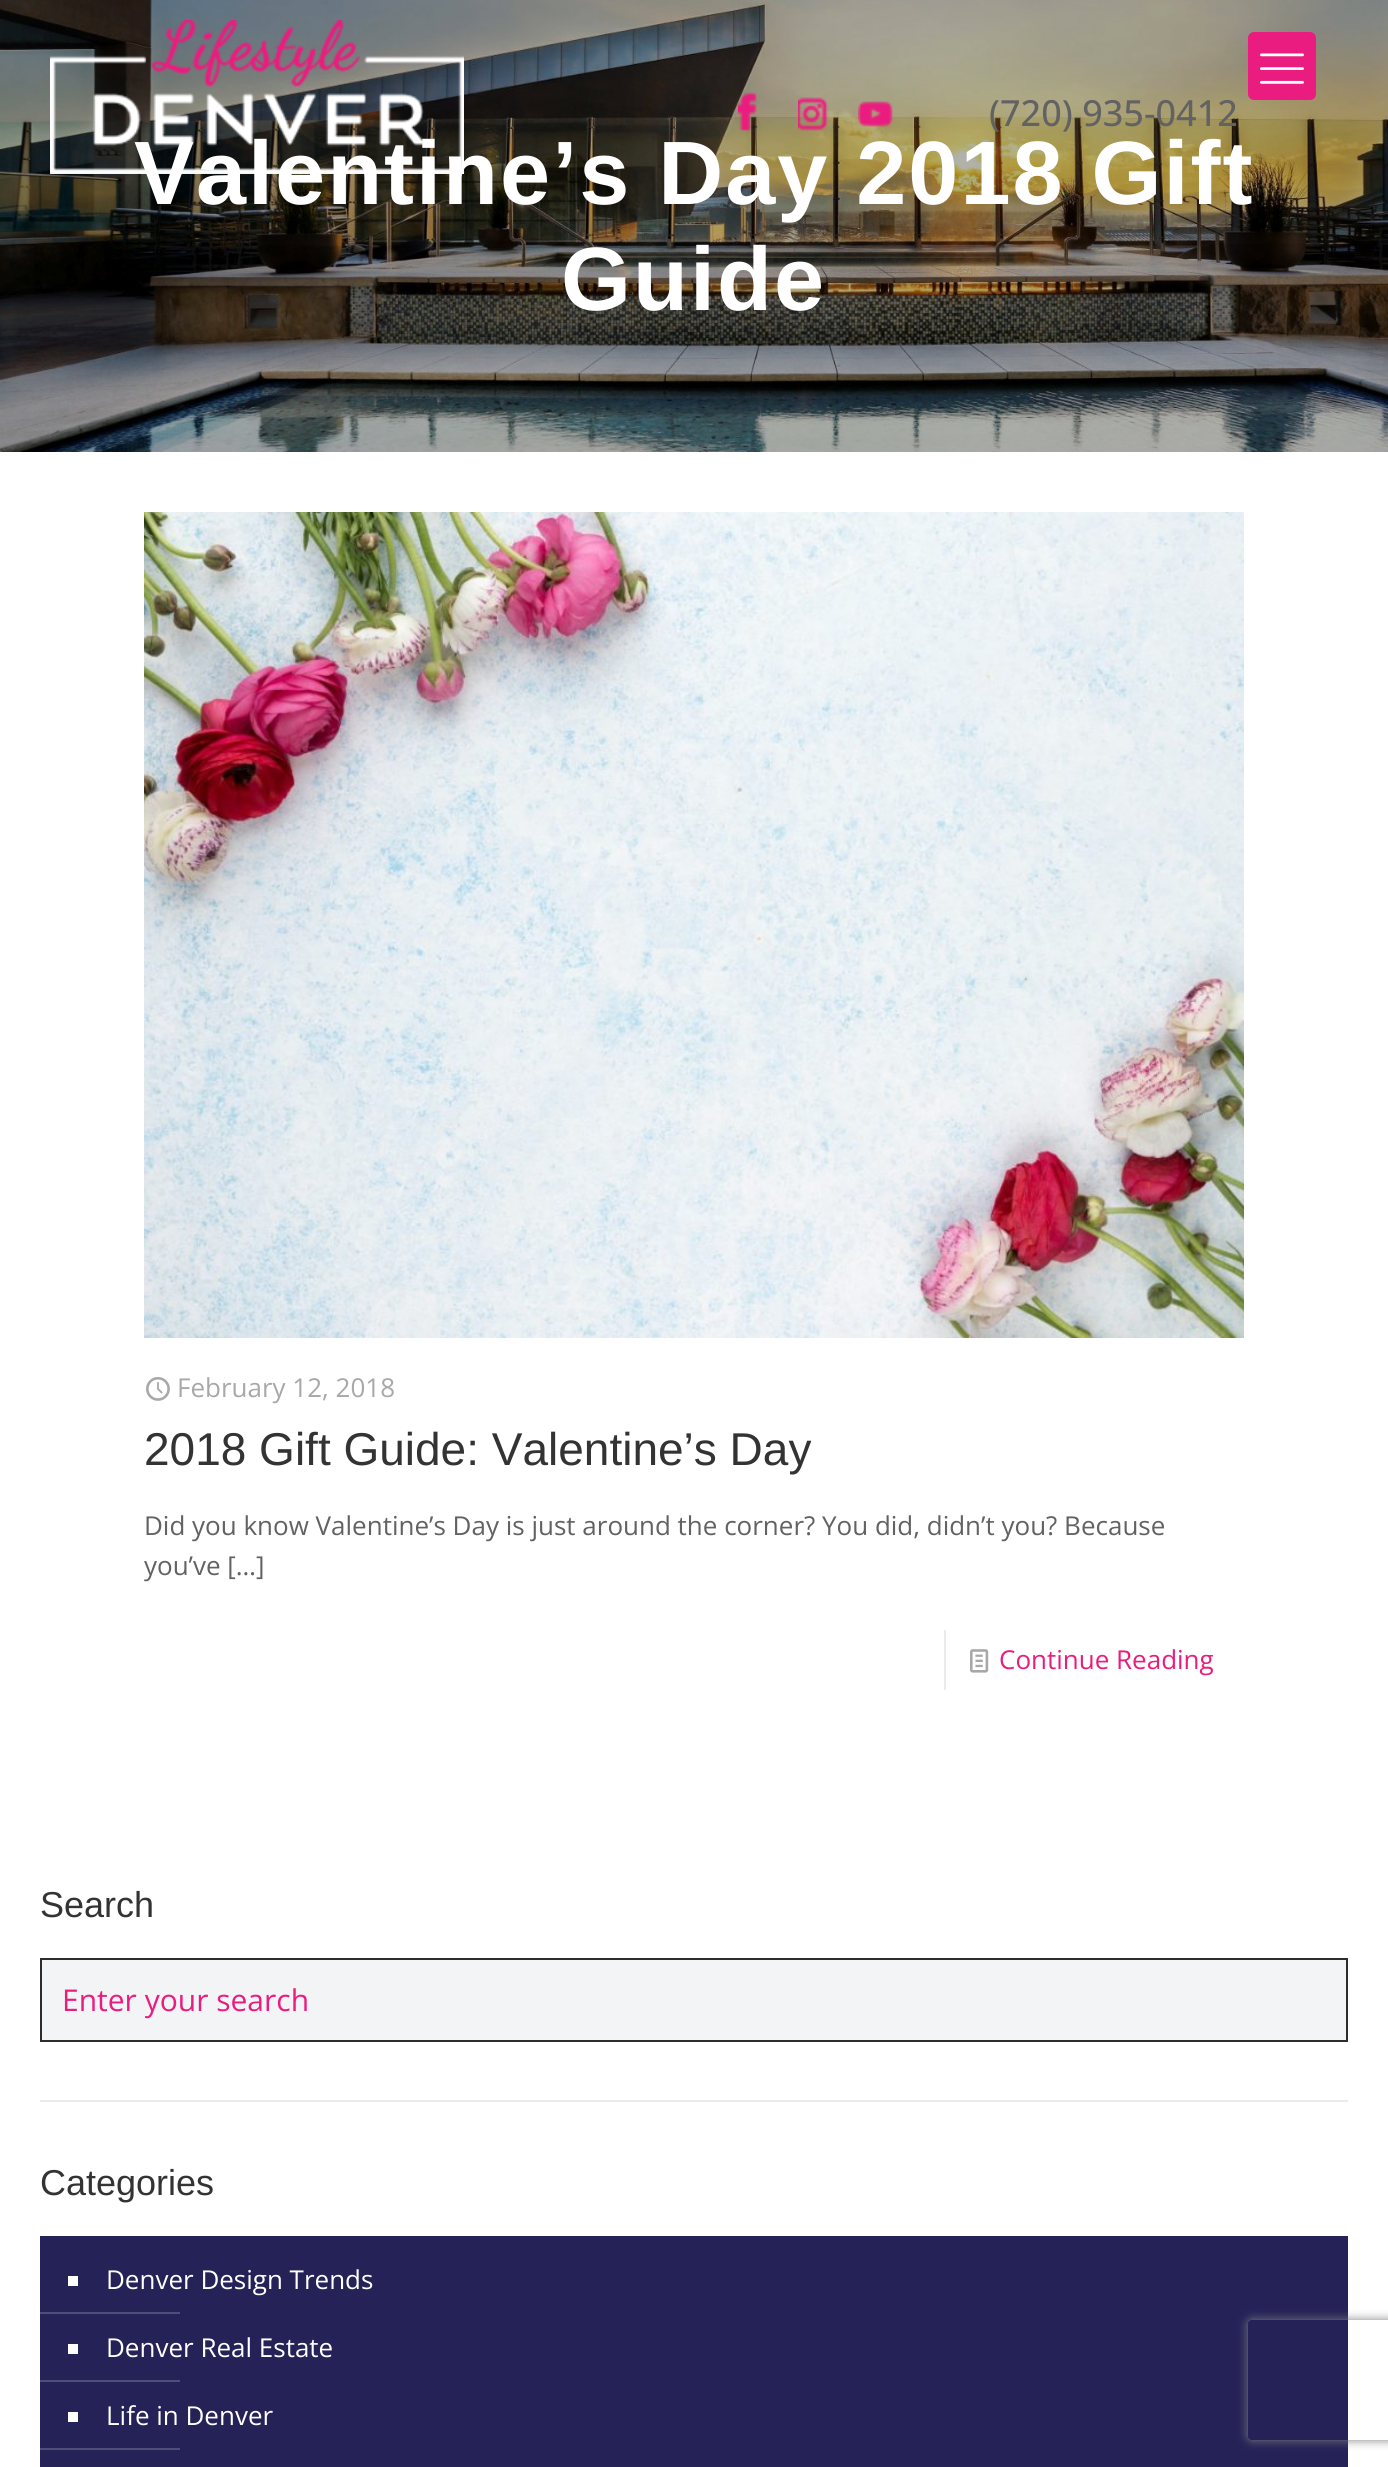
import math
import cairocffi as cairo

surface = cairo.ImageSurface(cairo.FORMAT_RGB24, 1388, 2467)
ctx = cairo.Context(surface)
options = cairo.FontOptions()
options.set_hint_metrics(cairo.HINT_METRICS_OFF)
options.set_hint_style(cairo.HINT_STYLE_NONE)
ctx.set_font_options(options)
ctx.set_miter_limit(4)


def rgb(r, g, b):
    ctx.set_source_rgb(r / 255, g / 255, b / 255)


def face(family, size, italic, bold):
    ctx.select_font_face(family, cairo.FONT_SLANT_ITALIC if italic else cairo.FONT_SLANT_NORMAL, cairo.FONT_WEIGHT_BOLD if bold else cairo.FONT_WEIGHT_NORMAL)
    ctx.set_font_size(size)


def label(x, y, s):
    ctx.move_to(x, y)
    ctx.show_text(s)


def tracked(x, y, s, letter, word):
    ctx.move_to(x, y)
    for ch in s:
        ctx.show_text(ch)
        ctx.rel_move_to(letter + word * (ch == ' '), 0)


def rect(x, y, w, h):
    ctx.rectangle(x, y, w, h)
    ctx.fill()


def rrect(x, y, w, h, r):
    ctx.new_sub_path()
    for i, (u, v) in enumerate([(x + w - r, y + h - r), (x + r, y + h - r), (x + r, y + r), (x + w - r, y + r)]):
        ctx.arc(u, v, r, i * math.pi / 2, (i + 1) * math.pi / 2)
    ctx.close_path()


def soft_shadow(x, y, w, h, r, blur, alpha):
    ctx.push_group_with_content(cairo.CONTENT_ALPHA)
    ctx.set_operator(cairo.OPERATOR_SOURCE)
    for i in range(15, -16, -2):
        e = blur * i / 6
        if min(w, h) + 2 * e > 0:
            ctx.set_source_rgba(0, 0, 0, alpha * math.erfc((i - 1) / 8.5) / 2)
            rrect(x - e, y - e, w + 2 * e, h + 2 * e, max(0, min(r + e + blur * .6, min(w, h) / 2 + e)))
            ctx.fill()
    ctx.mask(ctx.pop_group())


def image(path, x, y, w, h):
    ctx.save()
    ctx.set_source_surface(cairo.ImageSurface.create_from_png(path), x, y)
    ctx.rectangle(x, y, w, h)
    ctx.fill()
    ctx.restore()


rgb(255, 255, 255)
ctx.paint()
image('image5.png', 0, 0, 1388, 452)
face('Liberation Sans', 90, 0, 1)
rgb(255, 255, 255)
tracked(134, 204, 'Valentine’s Day 2018 Gift', 2, 0)
image('image0.png', 50, 20, 414, 154)
rgb(235, 28, 127)
rrect(1248, 32, 68, 68, 6)
ctx.fill()
image('image1.png', 1260, 53, 44, 31)
image('image2.png', 738, 92, 19, 39)
image('image3.png', 798, 97, 31, 34)
image('image4.png', 858, 101, 35, 26)
face('Open Sans Medium', 36, 0, 0)
rgb(98, 98, 98)
label(989, 126, '(720) 935-0412')
face('Liberation Sans', 90, 0, 1)
rgb(255, 255, 255)
tracked(561, 310, 'Guide', 2, 0)
image('image6.png', 144, 512, 1100, 826)
image('image7.png', 146, 1377, 24, 24)
face('Open Sans', 26, 0, 0)
rgb(168, 168, 168)
label(177, 1397, 'February 12, 2018')
face('Liberation Sans', 46, 0, 0)
rgb(51, 51, 51)
label(144, 1465, '2018 Gift Guide: Valentine’s Day')
face('Open Sans', 26, 0, 0)
rgb(98, 98, 98)
label(144, 1535, 'Did you know Valentine’s Day is just around the corner? You did, didn’t you? Because')
label(144, 1575, 'you’ve […]')
rgb(235, 235, 235)
rect(944, 1630, 2, 60)
image('image8.png', 970, 1649, 19, 24)
rgb(235, 28, 127)
label(999, 1669, 'Continue Reading')
face('Liberation Sans', 36, 0, 0)
rgb(51, 51, 51)
label(40, 1917, 'Search')
rgb(243, 244, 245)
ctx.rectangle(41, 1959, 1306, 82)
ctx.fill_preserve()
rgb(45, 45, 45)
ctx.stroke()
face('Open Sans', 30, 0, 0)
rgb(235, 28, 127)
label(62, 2011, 'Enter your search')
rgb(235, 235, 235)
rect(40, 2100, 1308, 2)
face('Liberation Sans', 36, 0, 0)
rgb(51, 51, 51)
label(40, 2195, 'Categories')
rgb(36, 34, 87)
rect(40, 2236, 1308, 231)
rgb(255, 255, 255)
rect(68, 2276, 10, 10)
face('Open Sans', 26, 0, 0)
label(106, 2289, 'Denver Design Trends')
rgb(80, 78, 121)
rect(40, 2312, 140, 2)
rgb(255, 255, 255)
rect(68, 2344, 10, 10)
label(106, 2357, 'Denver Real Estate')
rgb(80, 78, 121)
rect(40, 2380, 140, 2)
rgb(255, 255, 255)
rect(68, 2412, 10, 10)
label(106, 2425, 'Life in Denver')
rgb(80, 78, 121)
rect(40, 2448, 140, 2)
ctx.save()
ctx.set_fill_rule(cairo.FILL_RULE_EVEN_ODD)
ctx.new_path()
ctx.move_to(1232, 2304)
ctx.line_to(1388, 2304)
ctx.line_to(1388, 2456)
ctx.line_to(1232, 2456)
ctx.close_path()
ctx.move_to(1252, 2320)
ctx.line_to(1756, 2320)
ctx.curve_to(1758, 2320, 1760, 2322, 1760, 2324)
ctx.line_to(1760, 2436)
ctx.curve_to(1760, 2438, 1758, 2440, 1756, 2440)
ctx.line_to(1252, 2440)
ctx.curve_to(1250, 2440, 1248, 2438, 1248, 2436)
ctx.line_to(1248, 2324)
ctx.curve_to(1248, 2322, 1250, 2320, 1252, 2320)
ctx.close_path()
ctx.clip()
rgb(128, 128, 128)
soft_shadow(1248, 2320, 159, 120, 4, 5, 1)
ctx.restore()
surface.write_to_png('render.png')
